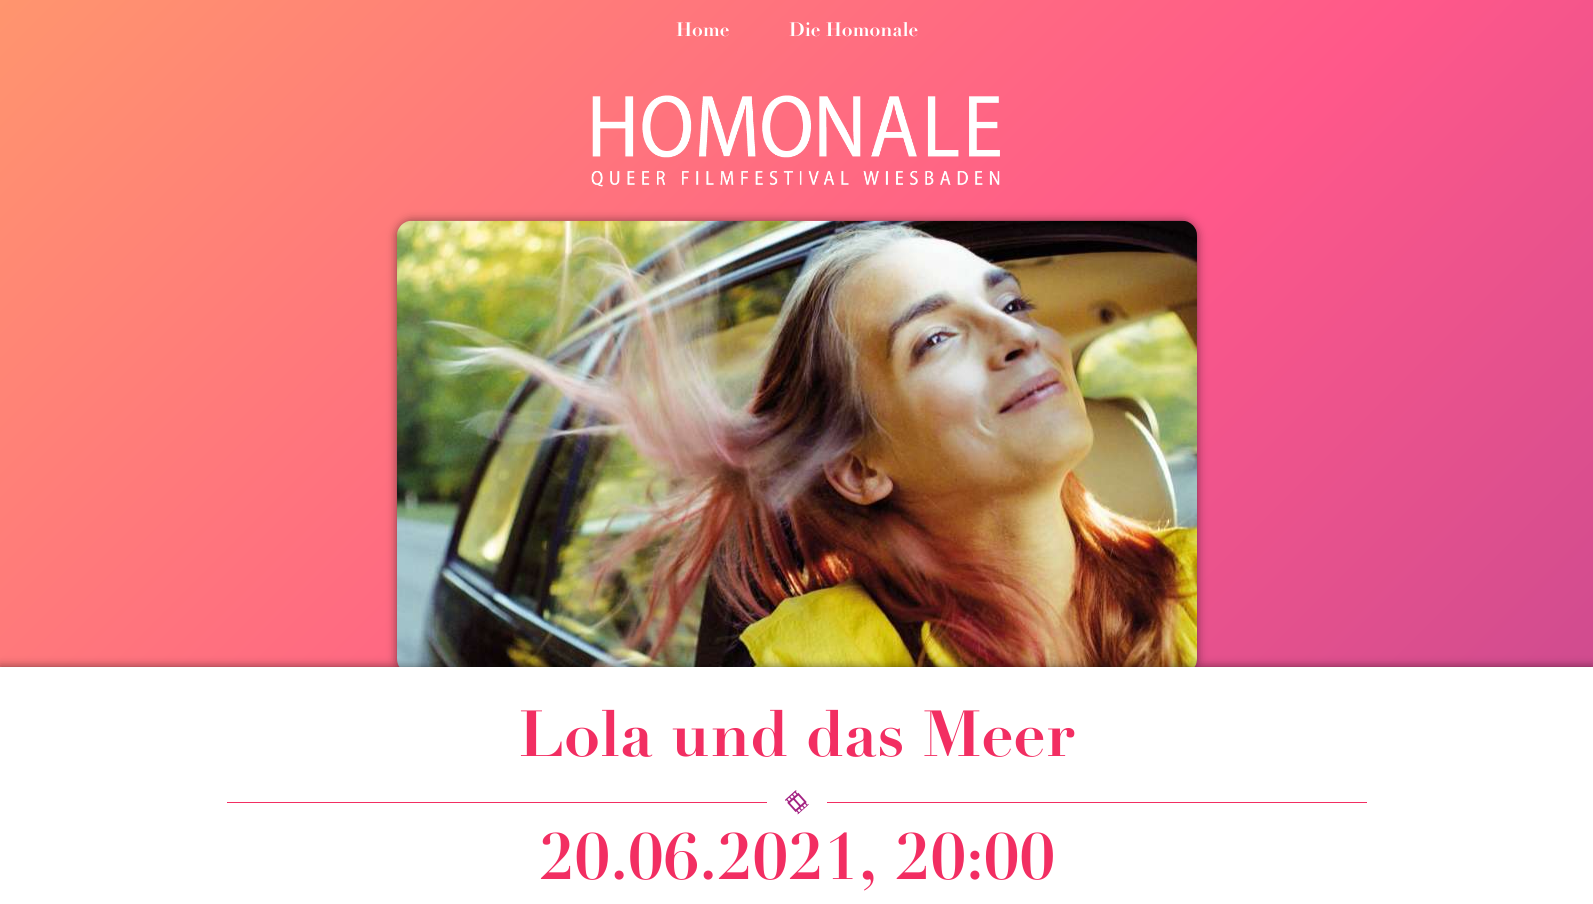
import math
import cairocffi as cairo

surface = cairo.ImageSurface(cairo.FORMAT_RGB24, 1593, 904)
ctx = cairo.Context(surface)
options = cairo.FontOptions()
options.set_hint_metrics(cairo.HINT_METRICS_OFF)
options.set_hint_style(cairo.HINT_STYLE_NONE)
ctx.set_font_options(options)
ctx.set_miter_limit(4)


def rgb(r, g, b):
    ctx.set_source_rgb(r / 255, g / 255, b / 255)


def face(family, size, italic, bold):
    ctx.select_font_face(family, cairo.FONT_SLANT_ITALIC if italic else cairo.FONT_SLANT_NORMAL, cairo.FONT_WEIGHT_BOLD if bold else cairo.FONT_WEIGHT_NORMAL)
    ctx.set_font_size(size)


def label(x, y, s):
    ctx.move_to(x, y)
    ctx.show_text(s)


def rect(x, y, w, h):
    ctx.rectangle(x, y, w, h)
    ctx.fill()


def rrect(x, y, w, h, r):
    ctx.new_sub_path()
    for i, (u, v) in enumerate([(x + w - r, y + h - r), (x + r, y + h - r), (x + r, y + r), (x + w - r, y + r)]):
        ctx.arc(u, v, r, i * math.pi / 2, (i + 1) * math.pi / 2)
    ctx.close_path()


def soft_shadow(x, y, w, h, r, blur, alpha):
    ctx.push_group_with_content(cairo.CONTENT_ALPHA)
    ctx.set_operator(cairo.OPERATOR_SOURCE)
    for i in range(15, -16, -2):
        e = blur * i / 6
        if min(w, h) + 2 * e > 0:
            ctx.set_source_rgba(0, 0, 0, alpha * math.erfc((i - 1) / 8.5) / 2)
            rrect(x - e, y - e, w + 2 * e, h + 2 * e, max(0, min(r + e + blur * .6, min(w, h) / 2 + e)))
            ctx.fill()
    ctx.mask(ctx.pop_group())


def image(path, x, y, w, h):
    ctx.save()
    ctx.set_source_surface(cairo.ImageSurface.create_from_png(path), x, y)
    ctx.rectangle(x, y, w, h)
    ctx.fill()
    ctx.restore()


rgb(255, 255, 255)
ctx.paint()
gradient = cairo.LinearGradient(-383, 383, 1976, 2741)
gradient.add_color_stop_rgba(0, 1, 0.584, 0.431, 1)
gradient.add_color_stop_rgba(0.3, 1, 0.345, 0.541, 1)
gradient.add_color_stop_rgba(0.7, 0.588, 0.235, 0.588, 1)
gradient.add_color_stop_rgba(1, 0, 0.831, 1, 1)
ctx.set_source(gradient)
rect(0, 0, 1593, 667)
face('Didot', 19.25, 0, 1)
rgb(255, 255, 255)
label(676, 36, 'Home')
label(789, 36, 'Die Homonale')
image('image0.png', 591, 95, 409, 92)
rgb(0, 0, 0)
soft_shadow(397, 221, 800, 453, 15, 5, 0.5)
image('image1.png', 397, 220, 800, 447)
soft_shadow(0, 667, 1593, 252, 0, 5, 0.5)
rgb(255, 255, 255)
rect(0, 667, 1593, 237)
face('Didot', 64, 0, 1)
rgb(242, 46, 98)
label(518, 756, 'Lola und das Meer')
rect(227, 802, 540, 1)
image('image2.png', 785, 790, 24, 25)
rect(827, 802, 540, 1)
label(539, 879, '20.06.2021, 20:00')
surface.write_to_png('render.png')
